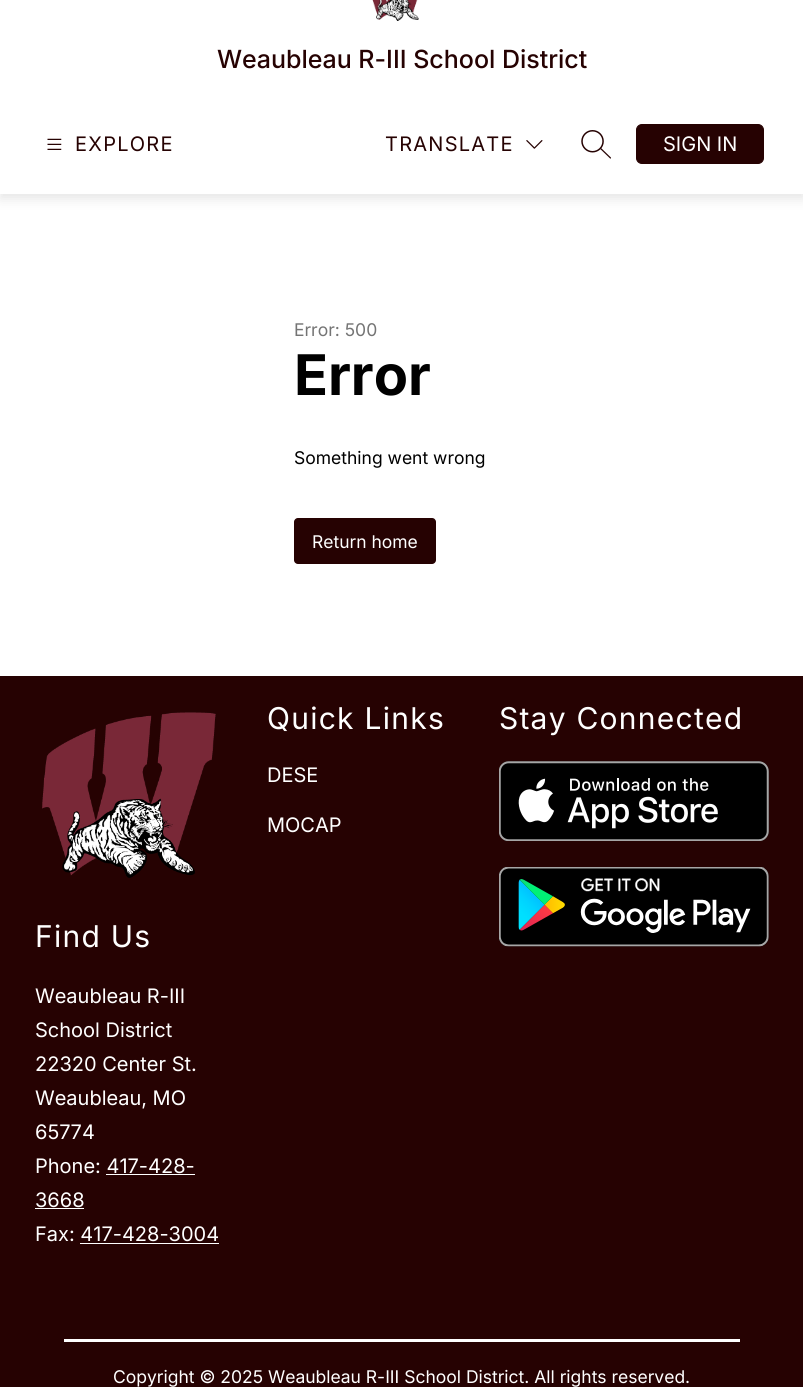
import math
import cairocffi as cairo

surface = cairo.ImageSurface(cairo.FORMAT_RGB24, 803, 1387)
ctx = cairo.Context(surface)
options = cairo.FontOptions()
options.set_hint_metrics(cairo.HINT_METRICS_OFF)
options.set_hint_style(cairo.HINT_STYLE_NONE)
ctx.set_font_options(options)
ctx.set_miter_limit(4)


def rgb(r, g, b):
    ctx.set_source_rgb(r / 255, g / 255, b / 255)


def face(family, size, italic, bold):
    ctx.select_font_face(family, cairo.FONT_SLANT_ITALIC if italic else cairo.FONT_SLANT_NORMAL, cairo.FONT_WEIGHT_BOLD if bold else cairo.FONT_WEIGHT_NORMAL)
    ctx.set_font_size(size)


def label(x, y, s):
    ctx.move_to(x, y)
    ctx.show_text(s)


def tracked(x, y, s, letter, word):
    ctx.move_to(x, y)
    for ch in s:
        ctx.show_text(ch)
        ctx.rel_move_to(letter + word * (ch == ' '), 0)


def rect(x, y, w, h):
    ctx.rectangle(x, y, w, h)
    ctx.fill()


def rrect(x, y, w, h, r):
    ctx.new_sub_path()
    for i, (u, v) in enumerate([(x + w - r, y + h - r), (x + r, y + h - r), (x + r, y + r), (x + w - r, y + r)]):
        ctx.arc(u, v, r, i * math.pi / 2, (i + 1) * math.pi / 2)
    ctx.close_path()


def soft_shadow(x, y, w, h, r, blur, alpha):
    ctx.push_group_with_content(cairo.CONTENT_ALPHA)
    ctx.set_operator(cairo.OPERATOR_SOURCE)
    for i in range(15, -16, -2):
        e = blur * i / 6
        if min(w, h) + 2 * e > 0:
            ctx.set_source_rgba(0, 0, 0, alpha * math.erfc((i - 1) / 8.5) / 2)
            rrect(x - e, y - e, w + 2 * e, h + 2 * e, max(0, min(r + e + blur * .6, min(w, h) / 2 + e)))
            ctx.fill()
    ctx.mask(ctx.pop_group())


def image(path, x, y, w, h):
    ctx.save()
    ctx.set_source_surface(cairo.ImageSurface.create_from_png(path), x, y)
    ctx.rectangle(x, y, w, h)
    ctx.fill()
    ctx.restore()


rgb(255, 255, 255)
ctx.paint()
rgb(0, 0, 0)
soft_shadow(0, -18, 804, 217, 0, 6, 0.1)
rgb(255, 255, 255)
rect(0, 0, 803, 194)
image('image0.png', 372, 0, 47, 21)
face('Inter Medium', 25, 0, 0)
rgb(38, 2, 2)
label(217, 68, 'Weaubleau R-III School District')
image('image1.png', 47, 138, 15, 12)
face('Inter', 20, 0, 0)
tracked(75, 151, 'EXPLORE', 1.25, 0)
tracked(385, 151, 'TRANSLATE', 1.25, 0)
image('image2.png', 526, 140, 17, 9)
image('image3.png', 581, 130, 30, 29)
rrect(636.5, 124.5, 127, 39, 5.5)
ctx.fill_preserve()
ctx.set_line_width(1)
ctx.stroke()
rgb(255, 255, 255)
label(663, 151, 'SIGN IN')
face('Inter', 17.5, 0, 0)
rgb(116, 116, 116)
label(294, 336, 'Error: 500')
face('Inter', 56, 0, 1)
rgb(0, 0, 0)
label(294, 395, 'Error')
face('Inter', 17.5, 0, 0)
label(294, 464, 'Something went wrong')
rgb(38, 2, 2)
rrect(294, 518, 142, 46, 4)
ctx.fill()
rgb(255, 255, 255)
label(312, 548, 'Return home')
rgb(38, 2, 2)
rect(0, 676, 803, 711)
face('Inter', 30, 0, 0)
rgb(255, 255, 255)
tracked(267, 729, 'Quick Links', 1.25, 0)
face('Inter', 20, 0, 0)
label(267, 782, 'DESE')
label(267, 832, 'MOCAP')
face('Inter', 30, 0, 0)
tracked(499, 729, 'Stay Connected', 1.25, 0)
image('image4.png', 499, 761, 270, 80)
image('image5.png', 499, 867, 270, 80)
image('image6.png', 42, 712, 174, 166)
tracked(35, 947, 'Find Us', 1.25, 0)
face('Inter', 20, 0, 0)
label(35, 1003, 'Weaubleau R-III')
label(35, 1037, 'School District')
label(35, 1071, '22320 Center St.')
label(35, 1105, 'Weaubleau, MO')
label(35, 1139, '65774')
label(35, 1173, 'Phone: 417-428-')
label(35, 1207, '3668')
rect(106, 1174, 89, 1)
rect(35, 1208, 49, 1)
label(35, 1241, 'Fax: 417-428-3004')
rect(80, 1243, 139, 1)
rect(64, 1339, 676, 3)
face('Inter', 17.5, 0, 0)
label(113, 1383, 'Copyright © 2025 Weaubleau R-III School District. All rights reserved.')
surface.write_to_png('render.png')
